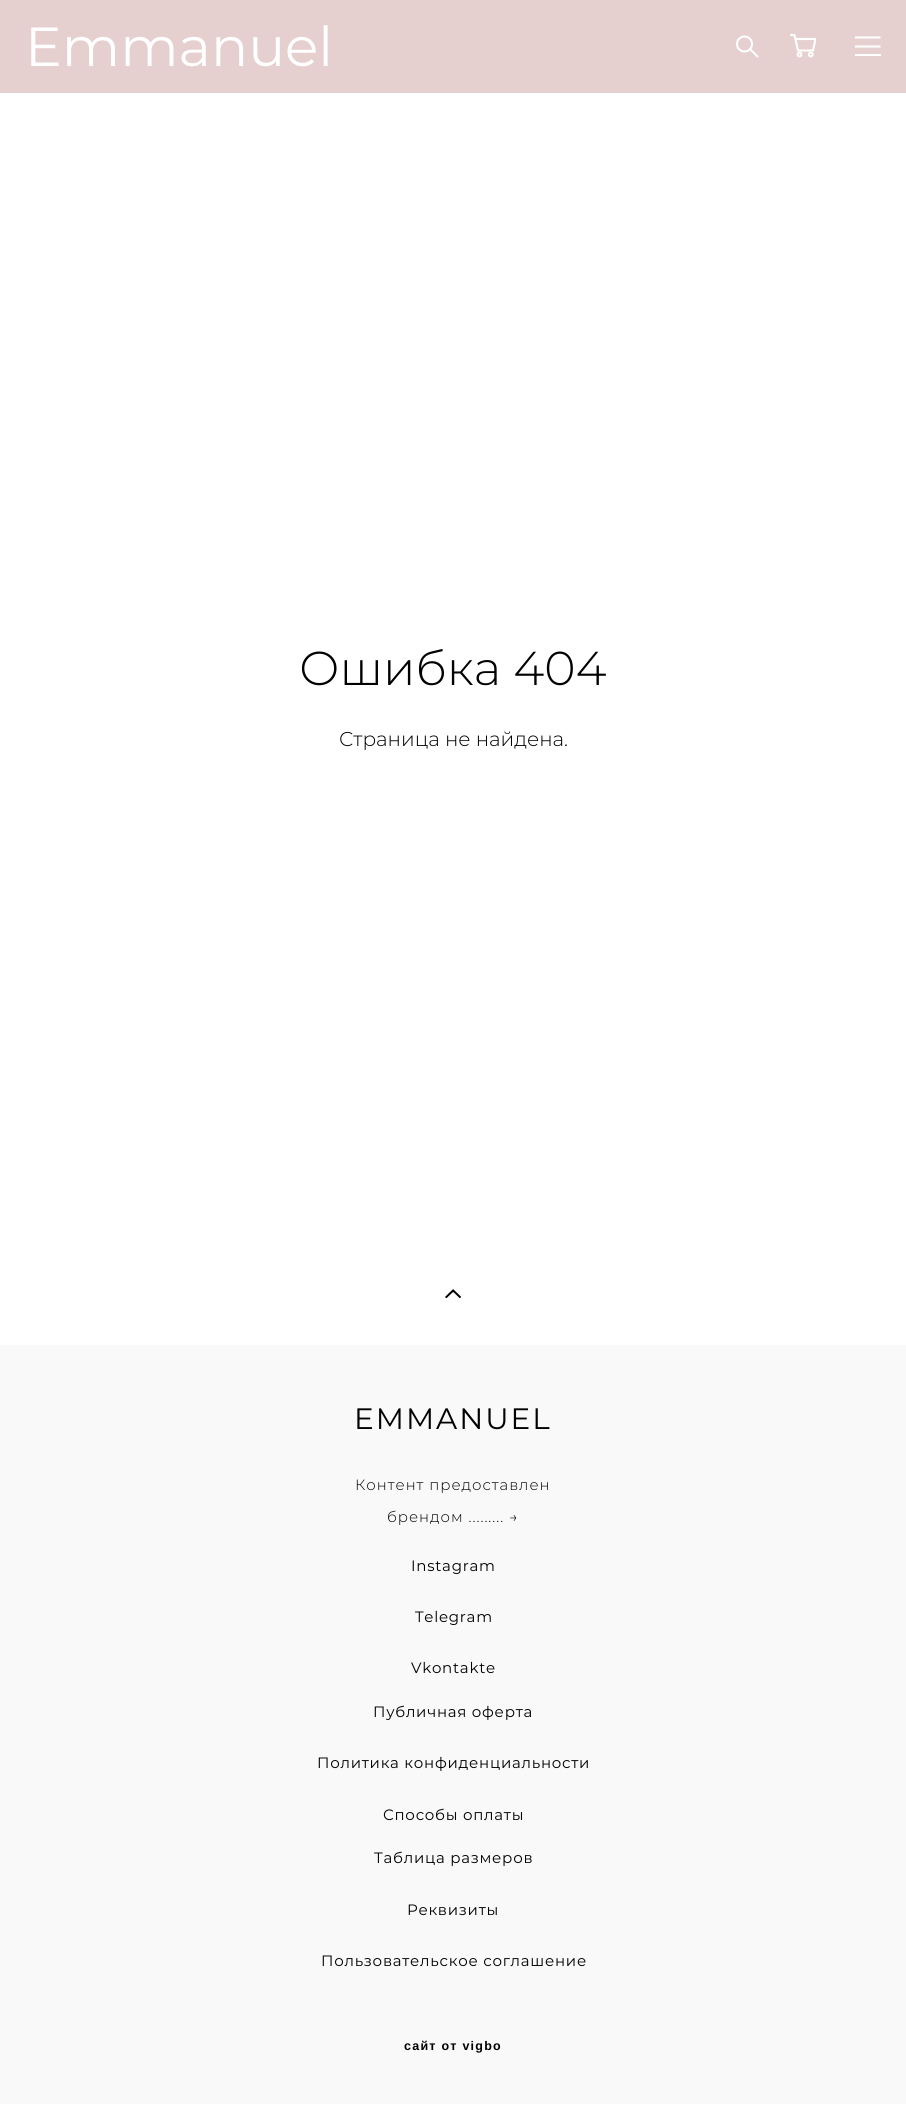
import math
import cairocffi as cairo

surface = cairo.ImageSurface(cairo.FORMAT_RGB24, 906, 2104)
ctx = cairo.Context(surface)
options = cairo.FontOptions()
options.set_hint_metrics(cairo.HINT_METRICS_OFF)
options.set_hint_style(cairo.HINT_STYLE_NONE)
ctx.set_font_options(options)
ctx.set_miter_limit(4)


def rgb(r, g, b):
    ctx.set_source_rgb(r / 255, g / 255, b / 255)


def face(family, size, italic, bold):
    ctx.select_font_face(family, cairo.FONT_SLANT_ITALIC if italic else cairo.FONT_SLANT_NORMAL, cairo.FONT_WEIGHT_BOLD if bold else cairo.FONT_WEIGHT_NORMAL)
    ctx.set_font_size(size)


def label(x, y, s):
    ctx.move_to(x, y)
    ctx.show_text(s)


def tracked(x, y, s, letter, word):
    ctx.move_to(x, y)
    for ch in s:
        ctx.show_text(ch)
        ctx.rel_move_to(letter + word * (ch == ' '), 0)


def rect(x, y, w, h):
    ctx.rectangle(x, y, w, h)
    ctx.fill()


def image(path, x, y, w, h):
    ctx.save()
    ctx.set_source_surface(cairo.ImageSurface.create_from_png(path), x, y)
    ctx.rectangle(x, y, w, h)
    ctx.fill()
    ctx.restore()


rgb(255, 255, 255)
ctx.paint()
rgb(230, 207, 207)
rect(0, 0, 906, 93)
face('Montserrat', 55, 0, 0)
rgb(255, 255, 255)
label(25, 66, 'Emmanuel')
ctx.new_path()
ctx.arc(744.5, 44, 7.5, 0, 2 * math.pi)
ctx.set_line_width(2.1)
ctx.stroke()
ctx.new_path()
ctx.move_to(750, 49)
ctx.line_to(757.5, 56.5)
ctx.set_line_cap(cairo.LINE_CAP_ROUND)
ctx.set_line_join(cairo.LINE_JOIN_ROUND)
ctx.stroke()
ctx.save()
ctx.rectangle(790, 33, 26, 25)
ctx.clip()
ctx.new_path()
ctx.move_to(791, 35)
ctx.line_to(794.5, 35)
ctx.line_to(798, 50.5)
ctx.line_to(813, 50.5)
ctx.line_to(815.5, 39)
ctx.line_to(796, 39)
ctx.stroke()
ctx.restore()
ctx.arc(799.5, 54.5, 1.9, 0, 2 * math.pi)
ctx.set_line_cap(cairo.LINE_CAP_BUTT)
ctx.set_line_join(cairo.LINE_JOIN_MITER)
ctx.stroke()
ctx.arc(810.8, 54.5, 1.9, 0, 2 * math.pi)
ctx.stroke()
ctx.new_path()
ctx.move_to(855, 37.5)
ctx.line_to(880.5, 37.5)
ctx.move_to(855, 46.5)
ctx.line_to(880.5, 46.5)
ctx.stroke()
rect(855, 54, 26, 2)
face('Montserrat Light', 47.5, 0, 0)
rgb(0, 0, 0)
label(299, 685, 'Ошибка 404')
face('Montserrat Light', 20, 0, 0)
label(339, 746, 'Страница не найдена.')
image('image0.png', 445, 1289, 16, 10)
rgb(249, 249, 249)
rect(0, 1345, 906, 759)
face('Montserrat', 29.5, 0, 0)
rgb(0, 0, 0)
tracked(354, 1429, 'EMMANUEL', 2, 0)
face('Montserrat Light', 14.9, 0, 0)
tracked(355, 1490, 'Контент предоставлен', 1, 0)
tracked(387, 1522, 'брендом ......... →', 1, 0)
face('Montserrat', 15, 0, 0)
tracked(411, 1571, 'Instagram', 0.75, 0)
tracked(415, 1622, 'Telegram', 0.75, 0)
tracked(411, 1673, 'Vkontakte', 0.75, 0)
tracked(373, 1717, 'Публичная оферта', 0.75, 0)
tracked(317, 1768, 'Политика конфиденциальности', 0.75, 0)
tracked(383, 1820, 'Способы оплаты', 0.75, 0)
tracked(374, 1863, 'Таблица размеров', 0.75, 0)
tracked(407, 1915, 'Реквизиты', 0.75, 0)
tracked(321, 1966, 'Пользовательское соглашение', 0.75, 0)
face('Liberation Sans', 12.5, 0, 1)
tracked(404, 2050, 'сайт от vigbo', 1.25, 0)
surface.write_to_png('render.png')
